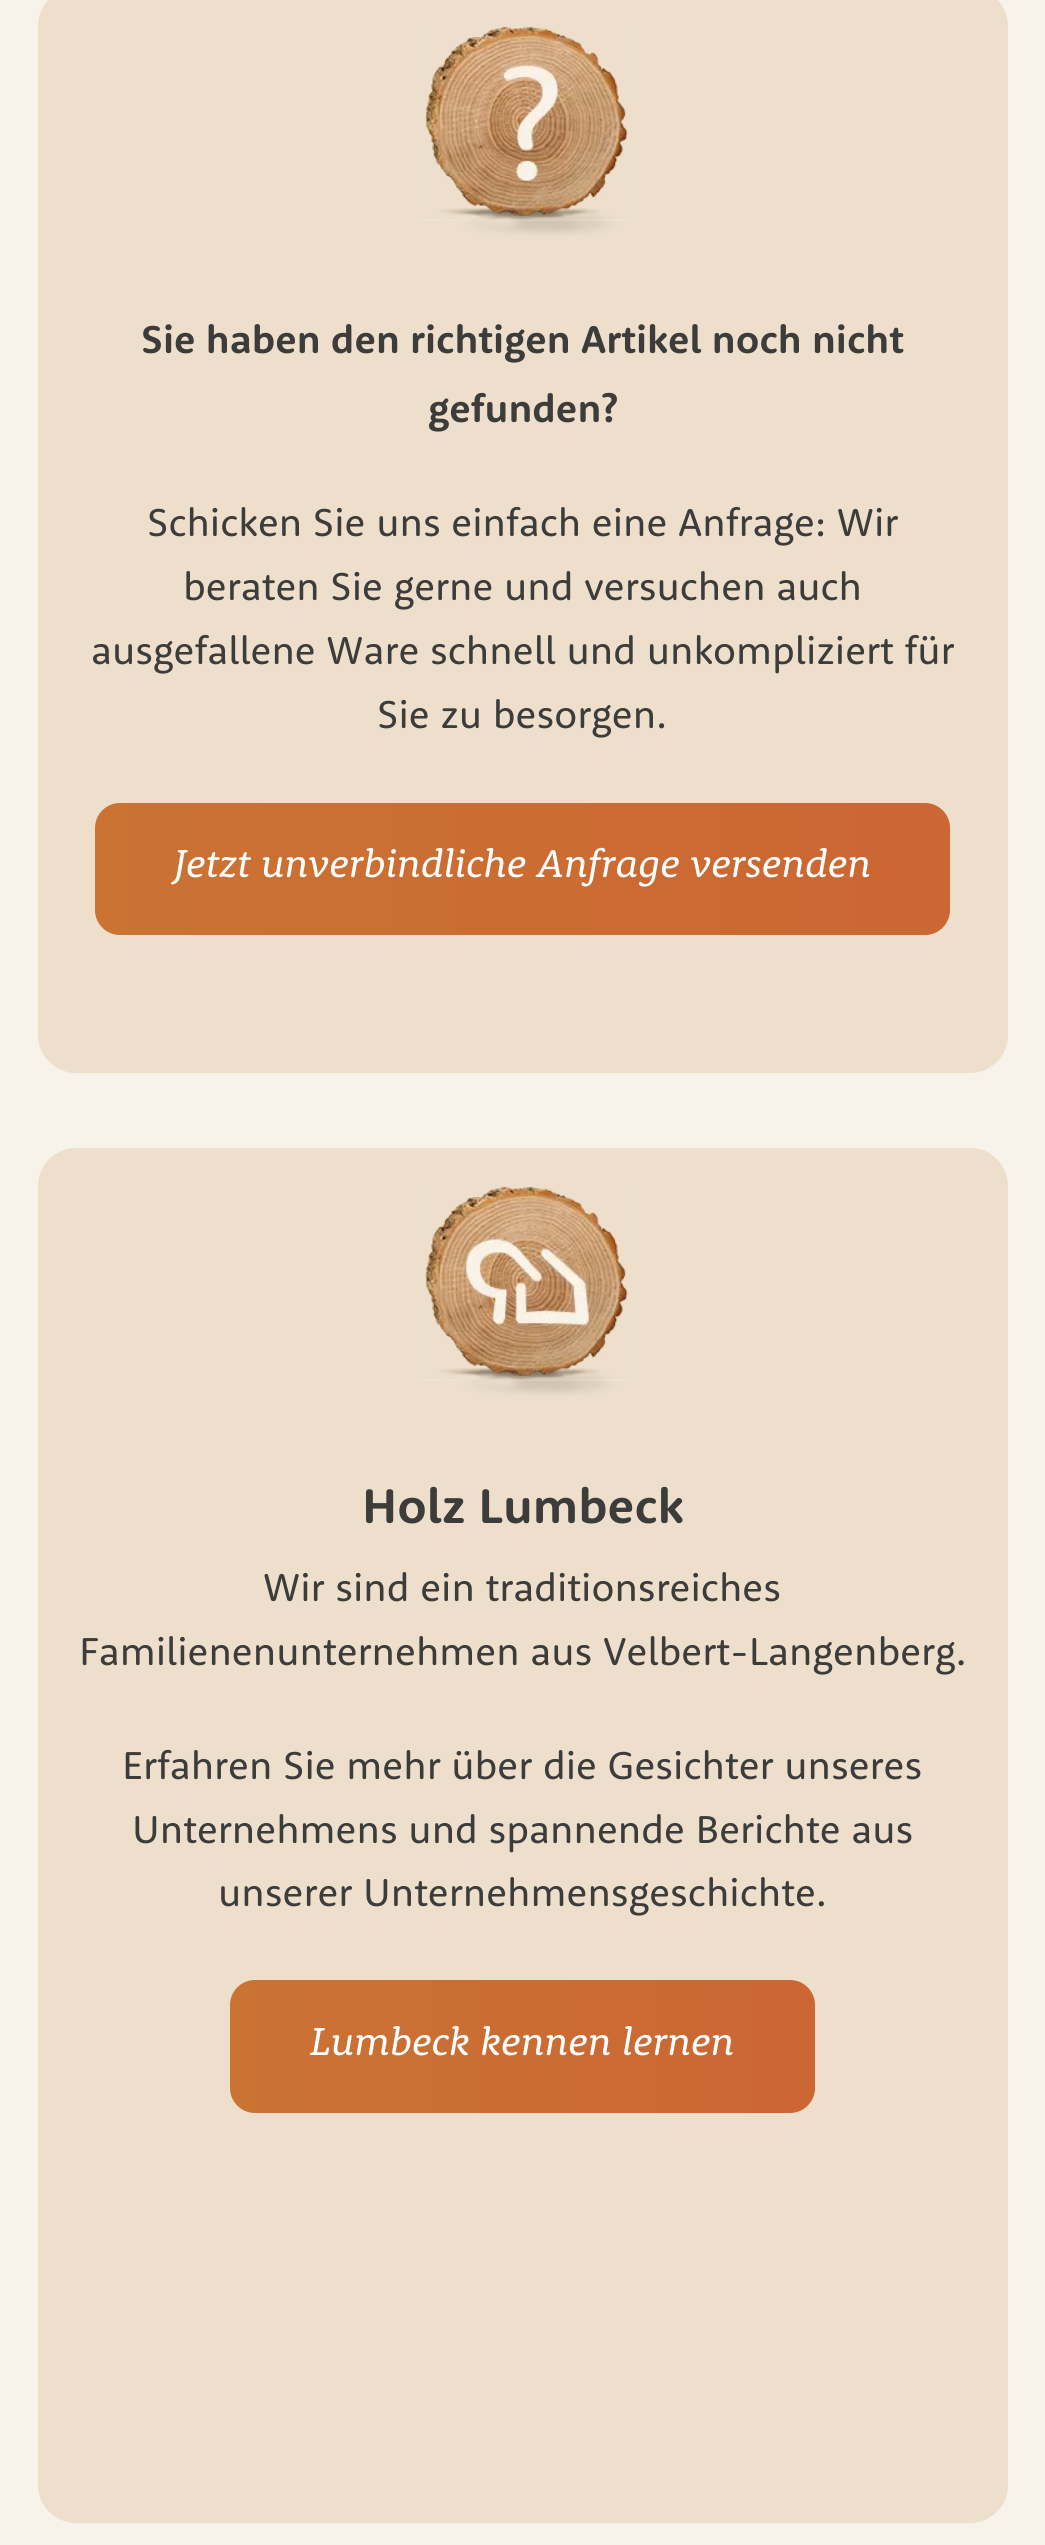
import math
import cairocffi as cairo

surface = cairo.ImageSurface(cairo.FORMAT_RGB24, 1045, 2545)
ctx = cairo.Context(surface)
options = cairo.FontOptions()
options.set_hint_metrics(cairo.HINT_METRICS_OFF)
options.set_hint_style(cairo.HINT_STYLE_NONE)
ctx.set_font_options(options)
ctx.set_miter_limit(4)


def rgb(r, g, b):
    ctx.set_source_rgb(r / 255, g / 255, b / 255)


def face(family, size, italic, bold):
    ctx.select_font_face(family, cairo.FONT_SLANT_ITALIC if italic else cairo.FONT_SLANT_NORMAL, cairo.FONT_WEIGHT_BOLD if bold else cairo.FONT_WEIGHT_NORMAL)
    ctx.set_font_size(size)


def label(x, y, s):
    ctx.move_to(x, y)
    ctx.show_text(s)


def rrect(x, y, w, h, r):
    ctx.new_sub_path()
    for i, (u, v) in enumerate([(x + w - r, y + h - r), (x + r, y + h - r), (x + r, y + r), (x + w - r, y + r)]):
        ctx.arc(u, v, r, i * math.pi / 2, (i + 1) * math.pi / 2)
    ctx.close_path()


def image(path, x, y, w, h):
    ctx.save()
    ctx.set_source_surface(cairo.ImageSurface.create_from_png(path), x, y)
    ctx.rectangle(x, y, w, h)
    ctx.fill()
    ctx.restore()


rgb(247, 243, 234)
ctx.paint()
rgb(237, 223, 204)
rrect(38, -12, 970, 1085, 38)
ctx.fill()
image('image0.png', 417, 26, 213, 210)
face('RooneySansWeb', 40, 0, 1)
rgb(60, 60, 59)
label(141, 353, 'Sie haben den richtigen Artikel noch nicht')
label(428, 422, 'gefunden?')
face('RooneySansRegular', 40, 0, 0)
label(147, 536, 'Schicken Sie uns einfach eine Anfrage: Wir')
label(183, 600, 'beraten Sie gerne und versuchen auch')
label(91, 664, 'ausgefallene Ware schnell und unkompliziert für')
label(377, 728, 'Sie zu besorgen.')
gradient = cairo.LinearGradient(95, 869, 950, 869)
gradient.add_color_stop_rgba(0, 0.792, 0.451, 0.2, 1)
gradient.add_color_stop_rgba(1, 0.8, 0.4, 0.2, 1)
ctx.set_source(gradient)
rrect(95, 803, 855, 132, 25)
ctx.fill()
face('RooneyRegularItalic', 40, 1, 0)
rgb(255, 255, 255)
label(174, 877, 'Jetzt unverbindliche Anfrage versenden')
rgb(237, 223, 204)
rrect(38, 1148, 970, 1375, 38)
ctx.fill()
image('image1.png', 417, 1186, 213, 210)
face('RooneySansWeb', 50, 0, 1)
rgb(60, 60, 59)
label(362, 1523, 'Holz Lumbeck')
face('RooneySansRegular', 40, 0, 0)
label(263, 1601, 'Wir sind ein traditionsreiches')
label(79, 1665, 'Familienenunternehmen aus Velbert-Langenberg.')
label(122, 1779, 'Erfahren Sie mehr über die Gesichter unseres')
label(132, 1843, 'Unternehmens und spannende Berichte aus')
label(218, 1906, 'unserer Unternehmensgeschichte.')
gradient = cairo.LinearGradient(230, 2046, 815, 2046)
gradient.add_color_stop_rgba(0, 0.792, 0.451, 0.2, 1)
gradient.add_color_stop_rgba(1, 0.8, 0.4, 0.2, 1)
ctx.set_source(gradient)
rrect(230, 1980, 585, 133, 25)
ctx.fill()
face('RooneyRegularItalic', 40, 1, 0)
rgb(255, 255, 255)
label(310, 2055, 'Lumbeck kennen lernen')
surface.write_to_png('render.png')
